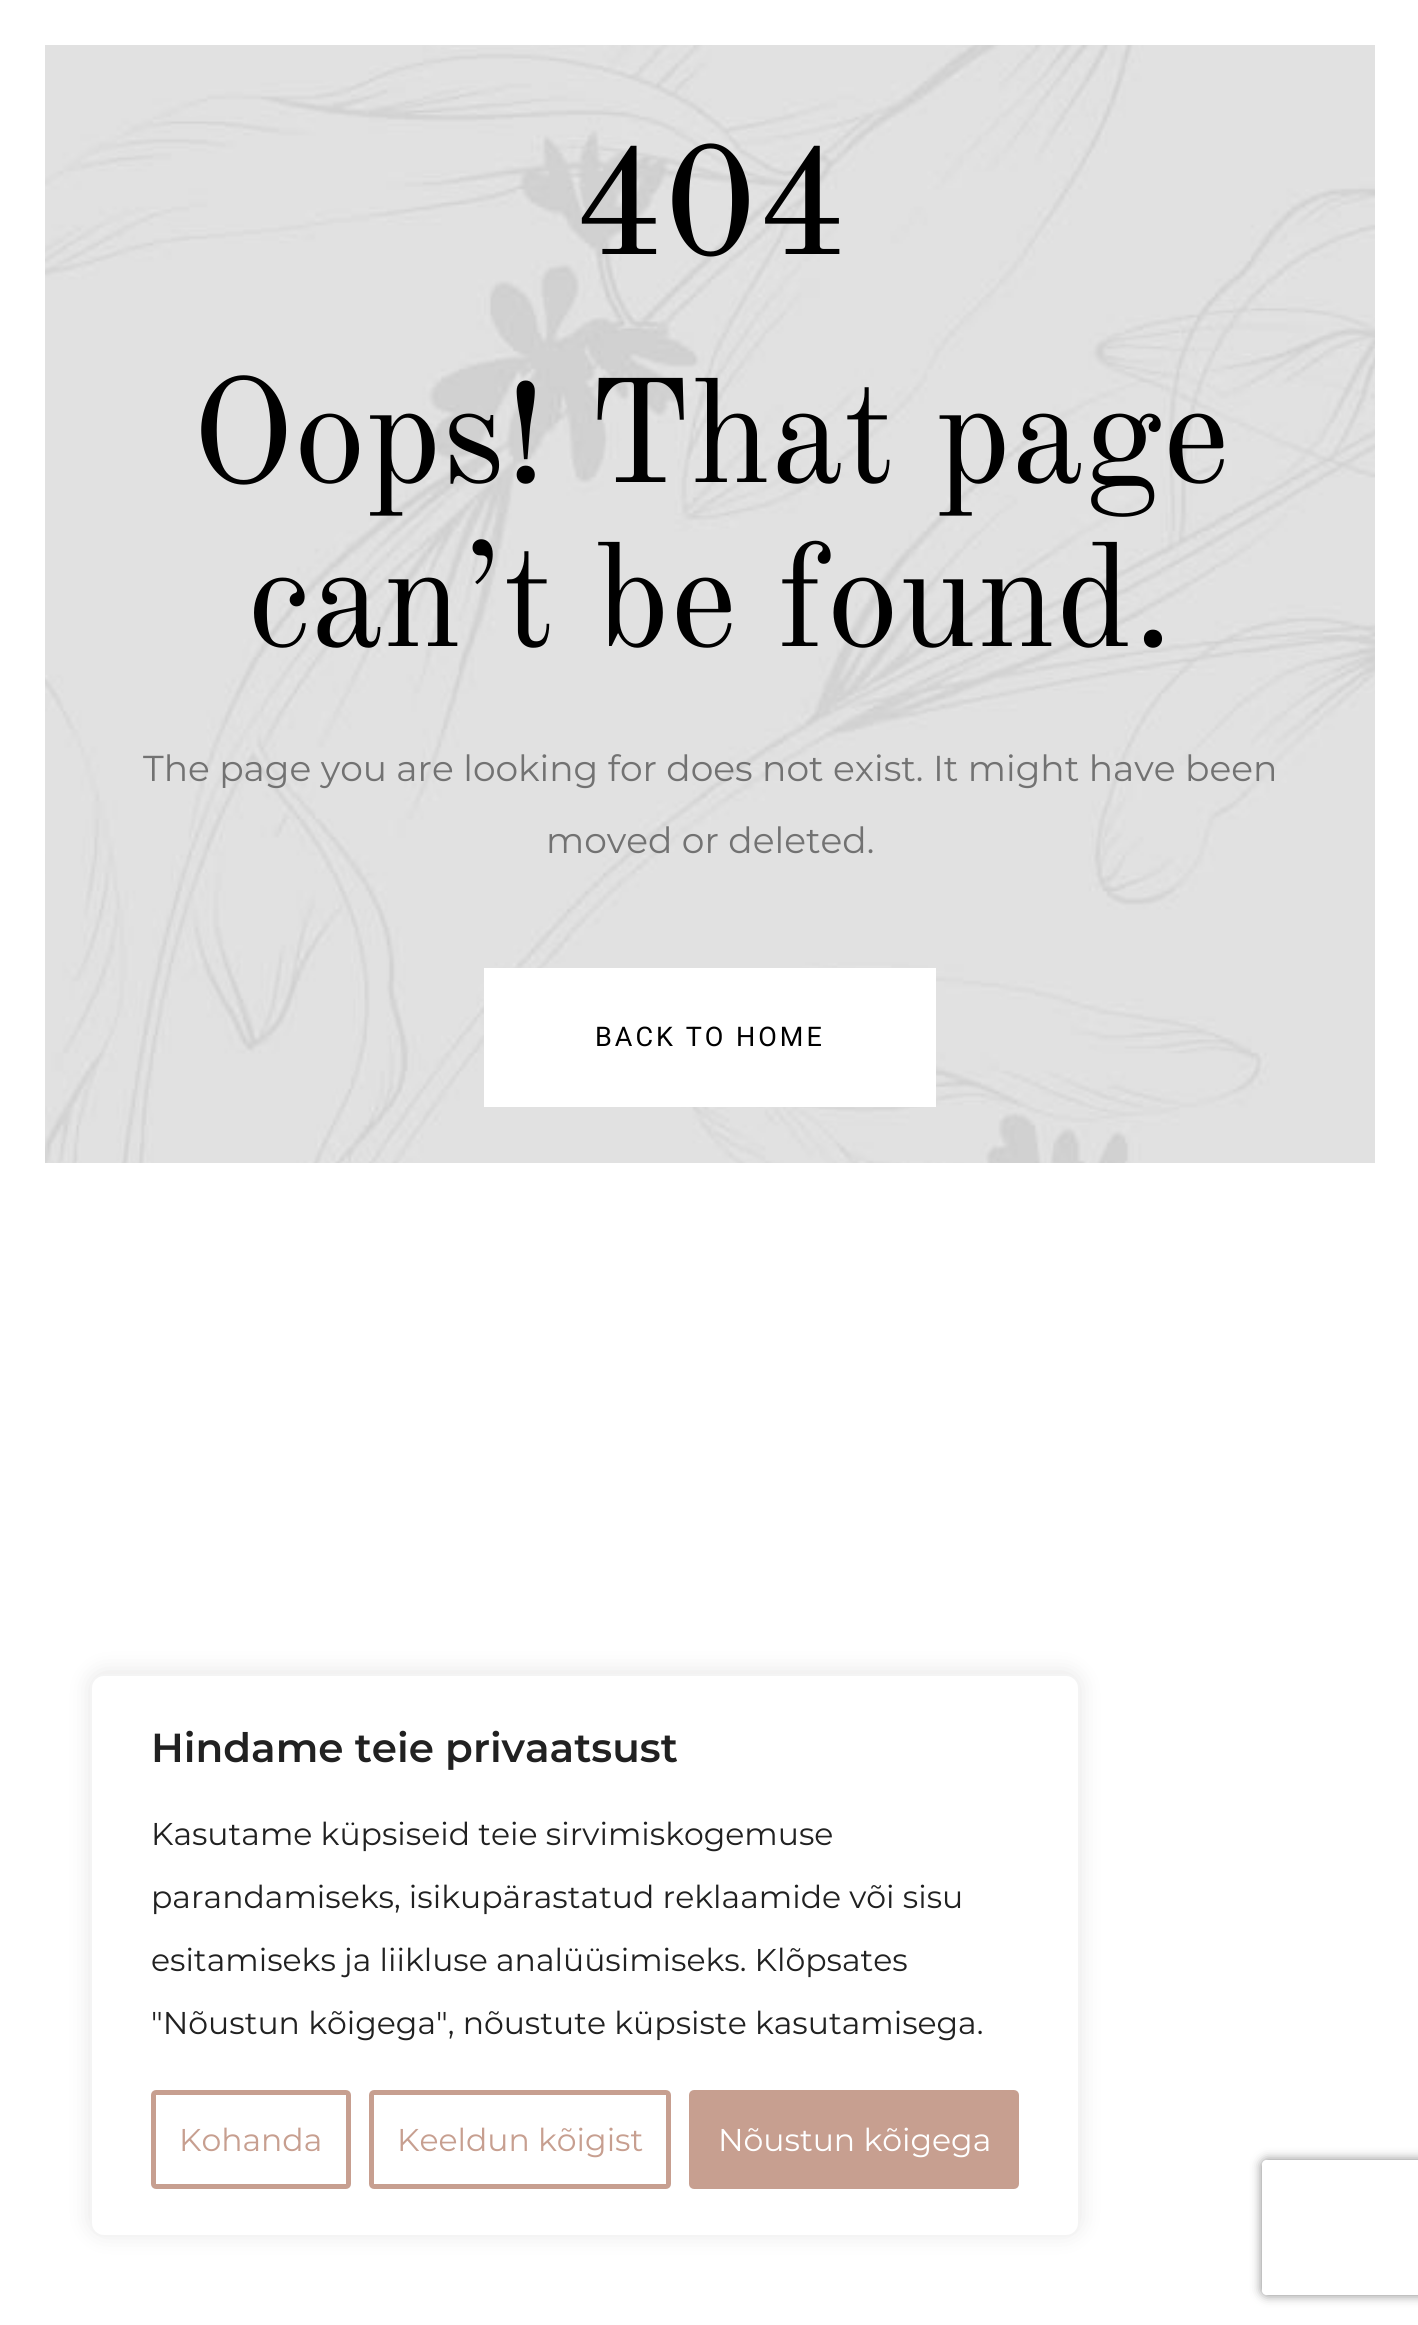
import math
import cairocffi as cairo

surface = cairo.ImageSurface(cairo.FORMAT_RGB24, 1418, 2325)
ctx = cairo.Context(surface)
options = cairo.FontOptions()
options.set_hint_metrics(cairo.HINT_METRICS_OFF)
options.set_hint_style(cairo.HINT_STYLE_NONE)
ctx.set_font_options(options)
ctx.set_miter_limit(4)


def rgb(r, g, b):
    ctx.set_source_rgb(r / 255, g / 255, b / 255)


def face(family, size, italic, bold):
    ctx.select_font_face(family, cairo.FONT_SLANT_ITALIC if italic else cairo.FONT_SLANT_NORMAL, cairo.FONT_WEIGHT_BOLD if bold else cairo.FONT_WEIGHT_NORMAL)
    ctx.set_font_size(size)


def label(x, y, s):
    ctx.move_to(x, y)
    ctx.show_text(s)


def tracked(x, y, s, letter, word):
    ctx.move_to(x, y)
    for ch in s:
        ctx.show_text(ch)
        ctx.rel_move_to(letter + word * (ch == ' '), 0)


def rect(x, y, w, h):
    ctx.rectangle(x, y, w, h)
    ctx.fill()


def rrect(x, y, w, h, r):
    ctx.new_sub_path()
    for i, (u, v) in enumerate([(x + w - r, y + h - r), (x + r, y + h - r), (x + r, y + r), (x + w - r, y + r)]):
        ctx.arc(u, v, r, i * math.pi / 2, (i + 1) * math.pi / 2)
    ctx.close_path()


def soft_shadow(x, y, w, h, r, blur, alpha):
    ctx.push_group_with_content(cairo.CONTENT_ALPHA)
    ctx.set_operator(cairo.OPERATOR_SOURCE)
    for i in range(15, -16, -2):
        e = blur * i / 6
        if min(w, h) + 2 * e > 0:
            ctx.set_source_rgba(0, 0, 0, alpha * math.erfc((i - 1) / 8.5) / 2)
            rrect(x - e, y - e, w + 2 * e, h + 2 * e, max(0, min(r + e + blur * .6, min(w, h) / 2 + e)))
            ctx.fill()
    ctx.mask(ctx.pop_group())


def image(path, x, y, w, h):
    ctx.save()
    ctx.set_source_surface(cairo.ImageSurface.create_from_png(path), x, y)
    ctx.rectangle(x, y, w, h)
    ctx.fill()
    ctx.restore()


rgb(255, 255, 255)
ctx.paint()
image('image0.png', 45, 45, 1330, 1118)
face('Old Standard TT', 158, 0, 0)
rgb(0, 0, 0)
label(573, 254, '404')
face('Old Standard TT', 146.25, 0, 0)
label(191, 482, 'Oops! That page')
label(247, 646, 'can’t be found.')
face('Montserrat Thin', 36, 0, 0)
rgb(114, 114, 114)
label(143, 781, 'The page you are looking for does not exist. It might have been')
label(546, 853, 'moved or deleted.')
rgb(255, 255, 255)
rect(484, 968, 452, 139)
face('Roboto', 27, 0, 0)
rgb(0, 0, 0)
tracked(595, 1046, 'BACK TO HOME', 3, 0)
rgb(172, 171, 171)
soft_shadow(90, 1672, 990, 562, 14, 11, 0.3)
rgb(255, 255, 255)
rrect(91, 1675, 988, 561, 13)
ctx.fill_preserve()
rgb(244, 244, 244)
ctx.stroke()
face('Montserrat SemiBold', 40.5, 0, 0)
rgb(33, 33, 33)
label(151, 1762, 'Hindame teie privaatsust')
face('Montserrat Thin', 31.5, 0, 0)
label(151, 1845, 'Kasutame küpsiseid teie sirvimiskogemuse')
label(151, 1908, 'parandamiseks, isikupärastatud reklaamide või sisu')
label(151, 1971, 'esitamiseks ja liikluse analüüsimiseks. Klõpsates')
label(151, 2034, '"Nõustun kõigega", nõustute küpsiste kasutamisega.')
rrect(153.5, 2092.5, 195, 94, 2.5)
rgb(199, 159, 144)
ctx.set_line_width(5)
ctx.stroke()
label(179, 2151, 'Kohanda')
rrect(371.5, 2092.5, 297, 94, 2.5)
ctx.stroke()
label(397, 2151, 'Keeldun kõigist')
rrect(691.5, 2092.5, 325, 94, 2.5)
ctx.fill_preserve()
ctx.stroke()
rgb(255, 255, 255)
label(718, 2151, 'Nõustun kõigega')
ctx.save()
ctx.set_fill_rule(cairo.FILL_RULE_EVEN_ODD)
ctx.new_path()
ctx.move_to(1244, 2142)
ctx.line_to(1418, 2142)
ctx.line_to(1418, 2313)
ctx.line_to(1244, 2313)
ctx.close_path()
ctx.move_to(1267, 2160)
ctx.line_to(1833, 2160)
ctx.curve_to(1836, 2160, 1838, 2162, 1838, 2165)
ctx.line_to(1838, 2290)
ctx.curve_to(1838, 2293, 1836, 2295, 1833, 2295)
ctx.line_to(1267, 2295)
ctx.curve_to(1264, 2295, 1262, 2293, 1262, 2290)
ctx.line_to(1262, 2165)
ctx.curve_to(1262, 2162, 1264, 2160, 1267, 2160)
ctx.close_path()
ctx.clip()
rgb(128, 128, 128)
soft_shadow(1262, 2160, 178, 135, 5, 5.5, 1)
ctx.restore()
surface.write_to_png('render.png')
